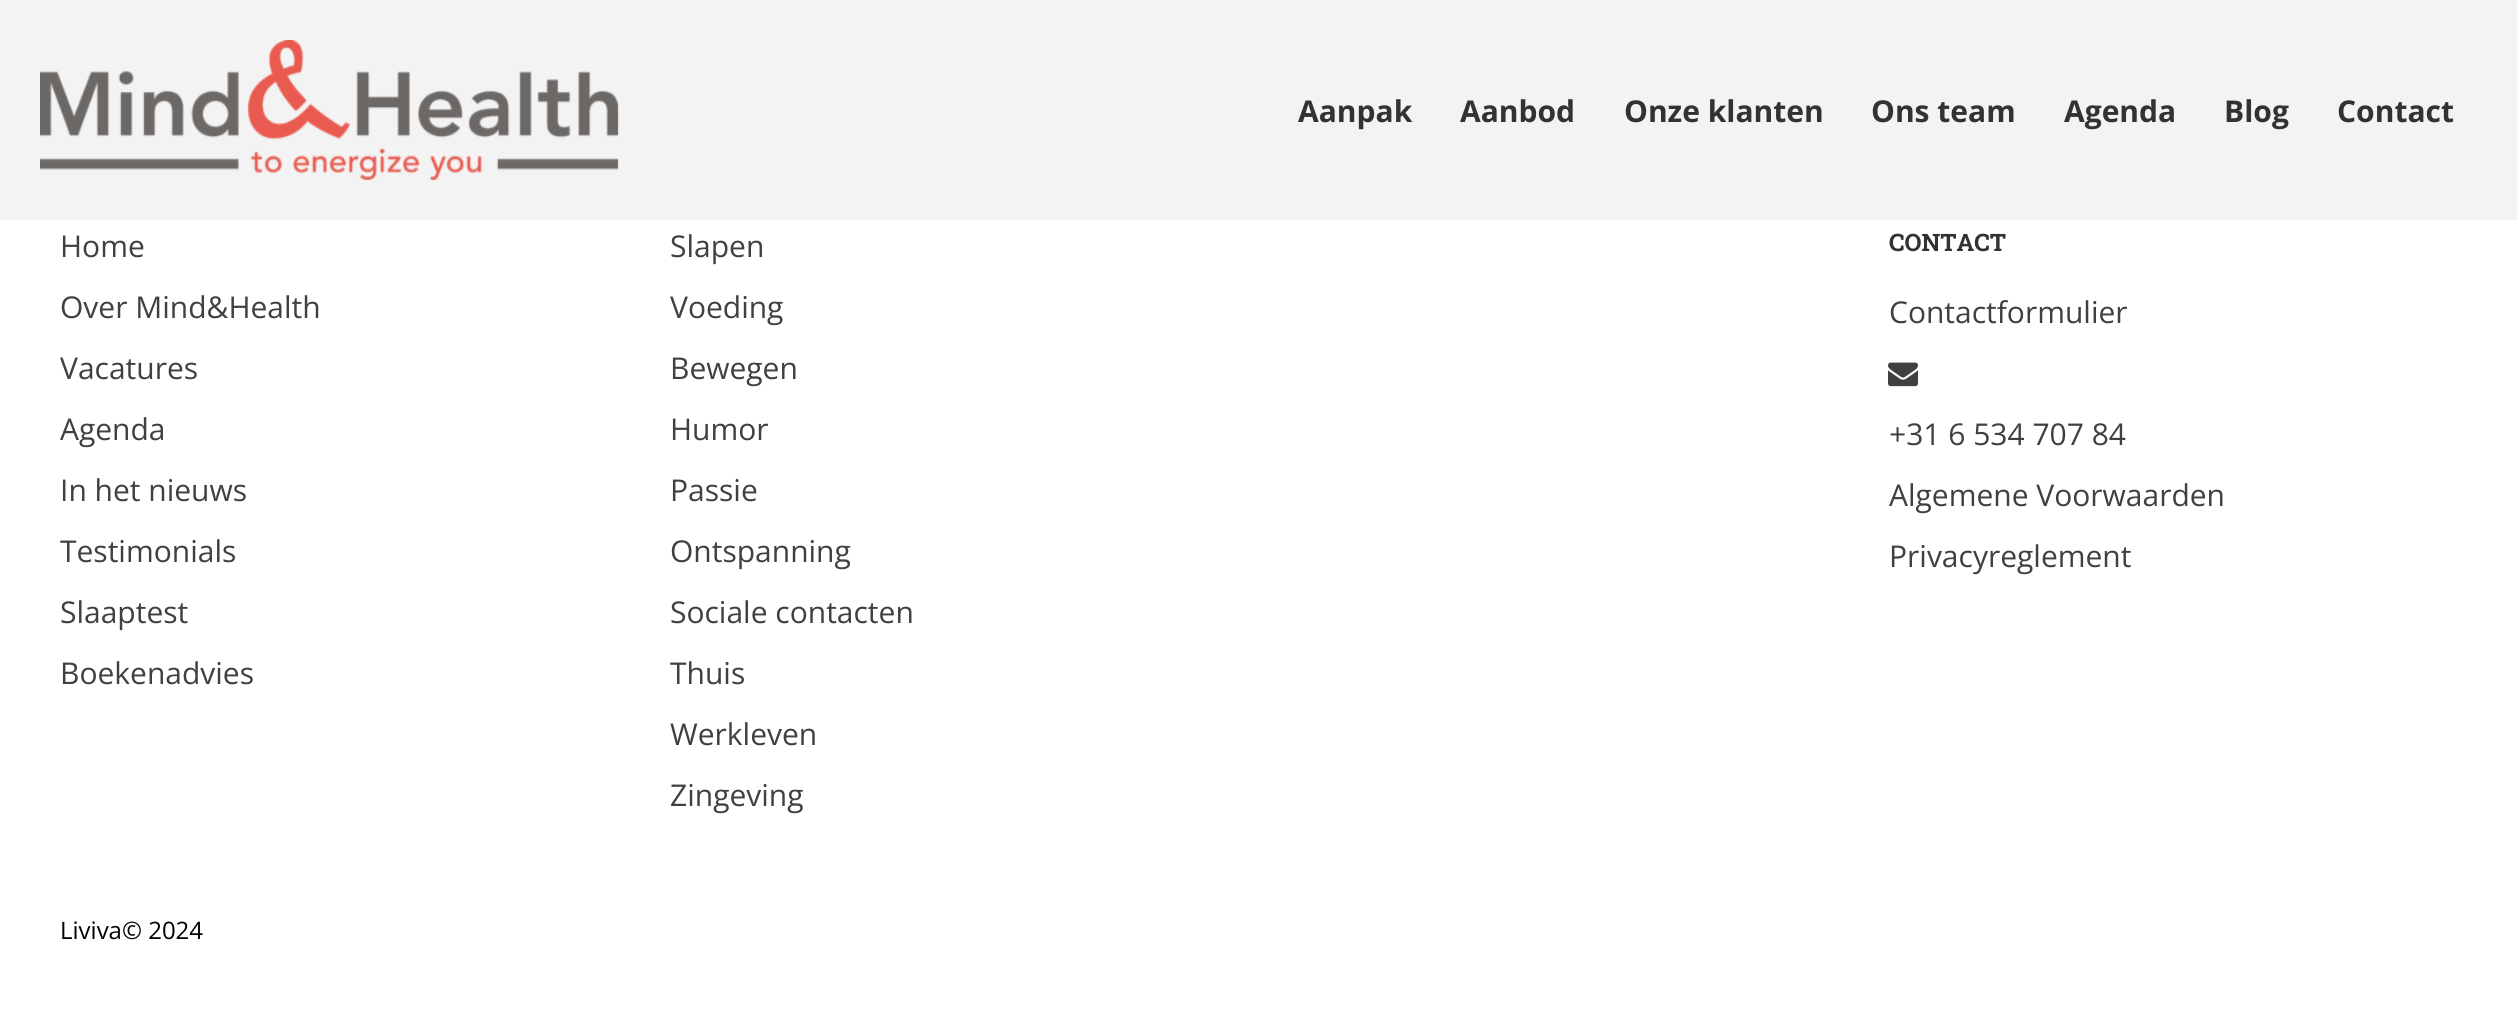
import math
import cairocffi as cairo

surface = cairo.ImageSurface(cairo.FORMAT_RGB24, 2517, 1029)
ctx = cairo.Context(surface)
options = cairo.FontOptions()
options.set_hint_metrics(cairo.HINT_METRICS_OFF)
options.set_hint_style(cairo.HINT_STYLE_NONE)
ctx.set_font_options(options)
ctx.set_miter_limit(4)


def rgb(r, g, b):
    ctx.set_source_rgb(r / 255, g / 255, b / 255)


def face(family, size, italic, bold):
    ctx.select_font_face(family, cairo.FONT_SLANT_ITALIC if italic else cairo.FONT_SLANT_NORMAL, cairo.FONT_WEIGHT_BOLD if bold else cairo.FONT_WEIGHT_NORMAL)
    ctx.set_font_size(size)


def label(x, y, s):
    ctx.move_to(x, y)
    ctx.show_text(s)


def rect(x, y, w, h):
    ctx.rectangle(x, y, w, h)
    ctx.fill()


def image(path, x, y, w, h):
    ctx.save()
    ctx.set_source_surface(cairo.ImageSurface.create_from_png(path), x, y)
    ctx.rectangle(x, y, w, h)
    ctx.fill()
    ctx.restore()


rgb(255, 255, 255)
ctx.paint()
rgb(243, 243, 243)
rect(0, 0, 2517, 220)
image('image0.png', 40, 40, 579, 140)
face('Open Sans', 30, 0, 1)
rgb(50, 50, 50)
label(1298, 122, 'Aanpak')
label(1460, 122, 'Aanbod')
label(1624, 122, 'Onze klanten')
label(1871, 122, 'Ons team')
label(2064, 122, 'Agenda')
label(2224, 122, 'Blog')
label(2337, 122, 'Contact')
face('Open Sans', 30, 0, 0)
rgb(64, 64, 64)
label(60, 257, 'Home')
label(60, 318, 'Over Mind&Health')
label(60, 379, 'Vacatures')
label(60, 440, 'Agenda')
label(60, 501, 'In het nieuws')
label(60, 562, 'Testimonials')
label(60, 623, 'Slaaptest')
label(60, 684, 'Boekenadvies')
label(670, 257, 'Slapen')
label(670, 318, 'Voeding')
label(670, 379, 'Bewegen')
label(670, 440, 'Humor')
label(670, 501, 'Passie')
label(670, 562, 'Ontspanning')
label(670, 623, 'Sociale contacten')
label(670, 684, 'Thuis')
label(670, 745, 'Werkleven')
label(670, 806, 'Zingeving')
face('Roboto Slab', 24, 0, 1)
rgb(50, 50, 50)
label(1889, 251, 'CONTACT')
face('Open Sans', 30, 0, 0)
rgb(64, 64, 64)
label(1889, 323, 'Contactformulier')
image('image1.png', 1888, 362, 30, 25)
label(1889, 445, '+31 6 534 707 84')
label(1889, 506, 'Algemene Voorwaarden')
label(1889, 567, 'Privacyreglement')
face('Open Sans', 24, 0, 0)
rgb(0, 0, 0)
label(60, 939, 'Liviva© 2024')
surface.write_to_png('render.png')
